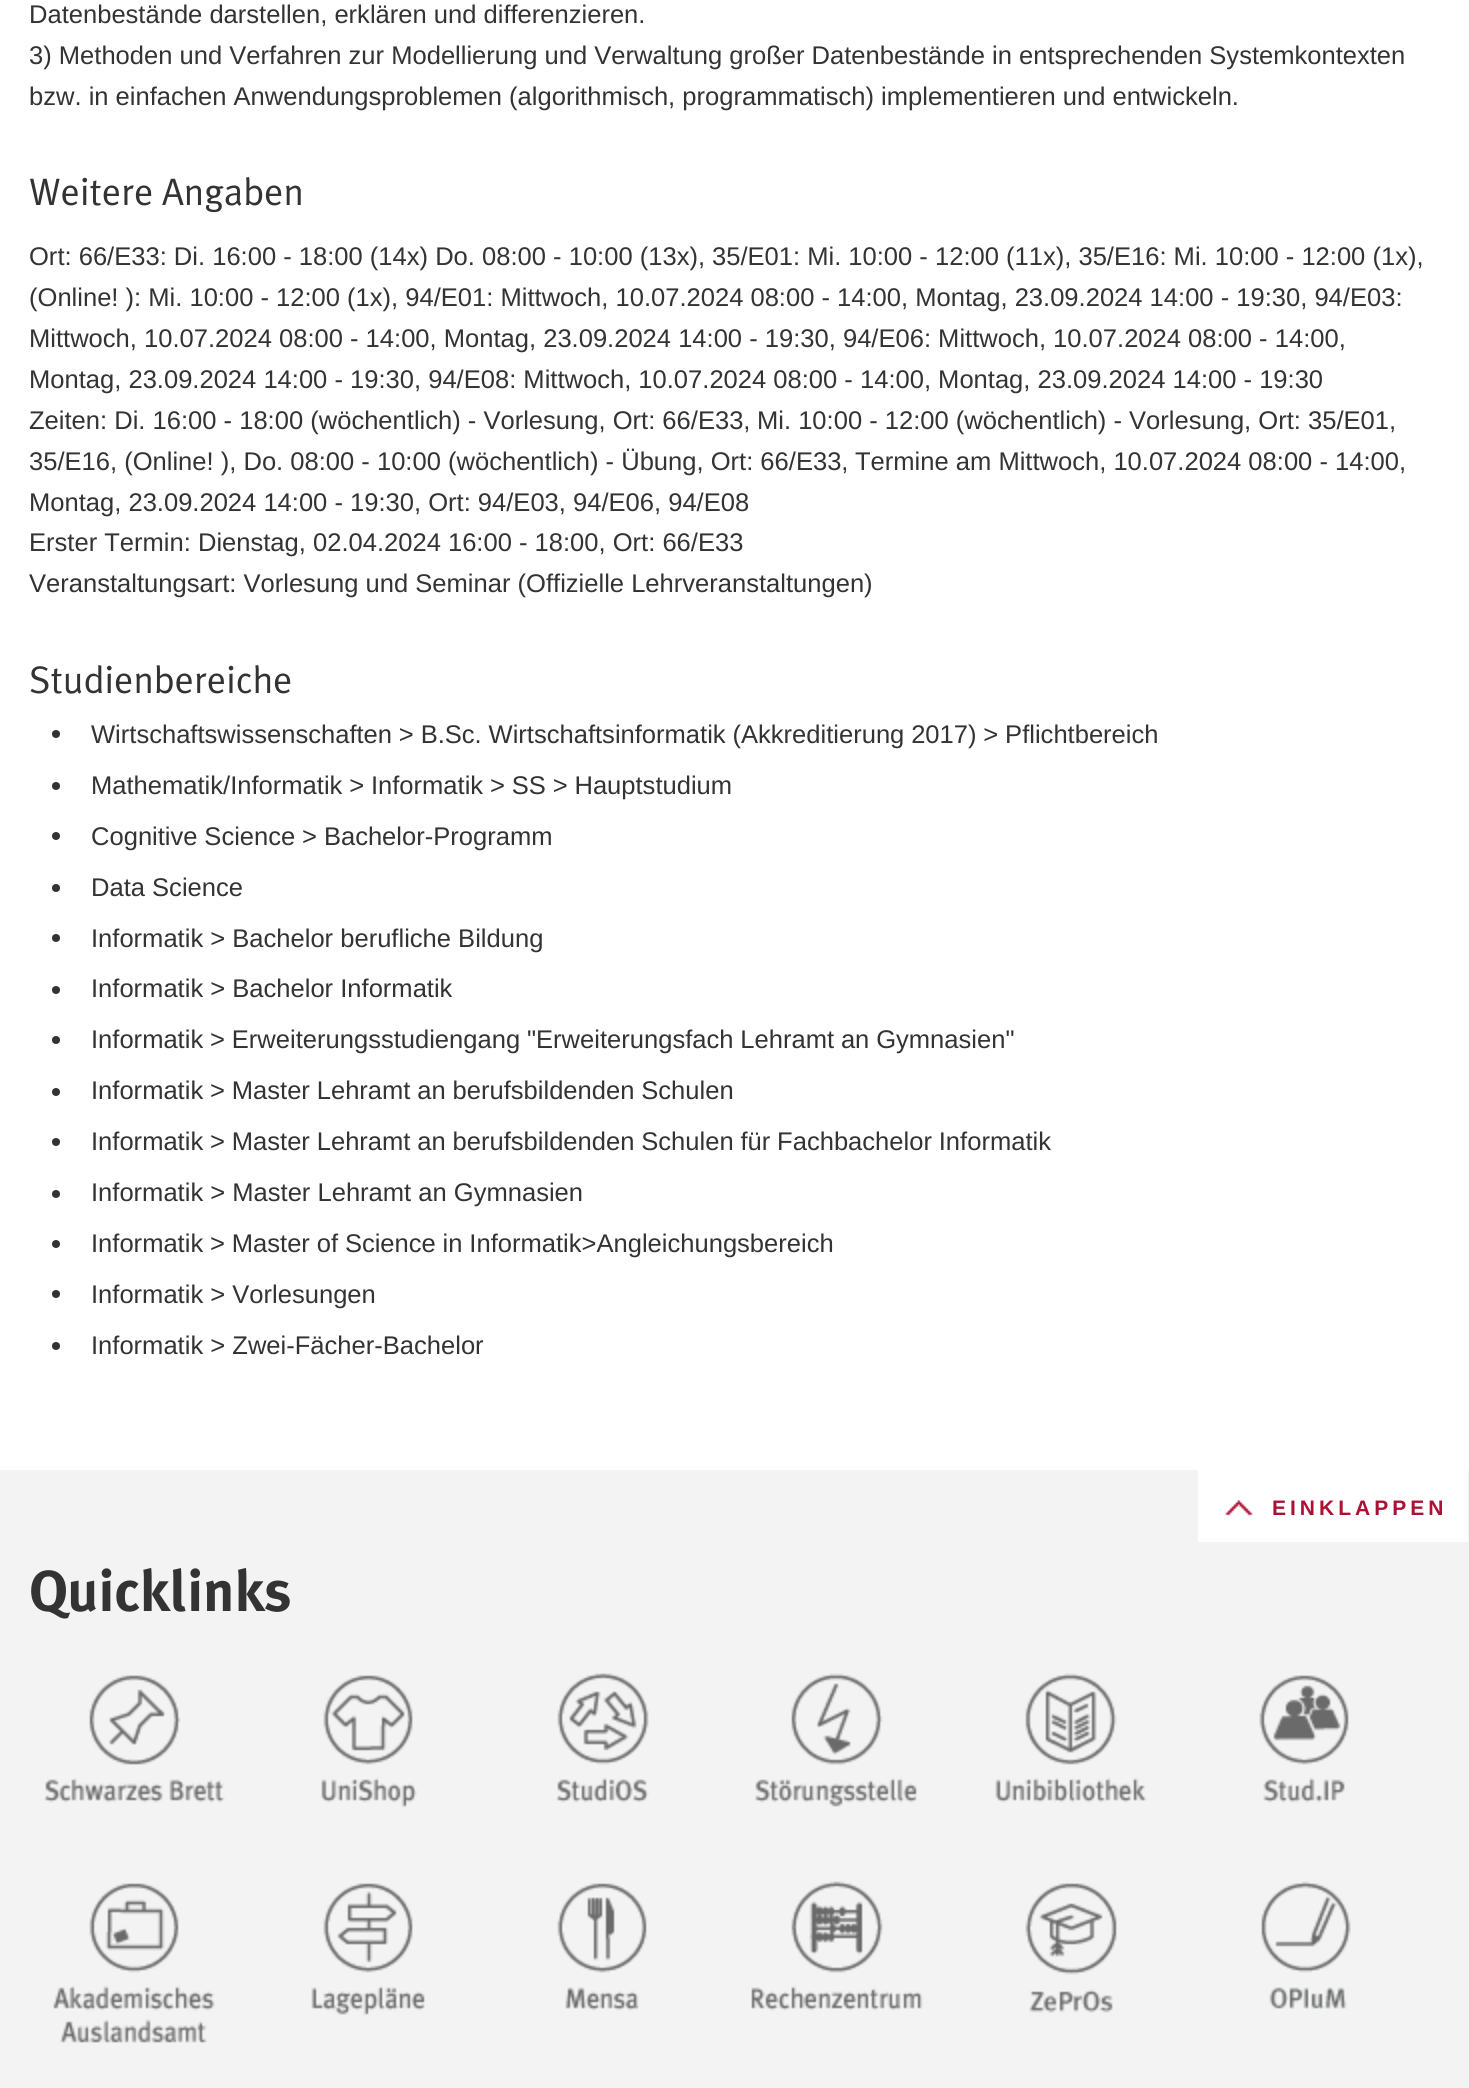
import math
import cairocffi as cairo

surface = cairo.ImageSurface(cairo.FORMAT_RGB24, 1469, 2088)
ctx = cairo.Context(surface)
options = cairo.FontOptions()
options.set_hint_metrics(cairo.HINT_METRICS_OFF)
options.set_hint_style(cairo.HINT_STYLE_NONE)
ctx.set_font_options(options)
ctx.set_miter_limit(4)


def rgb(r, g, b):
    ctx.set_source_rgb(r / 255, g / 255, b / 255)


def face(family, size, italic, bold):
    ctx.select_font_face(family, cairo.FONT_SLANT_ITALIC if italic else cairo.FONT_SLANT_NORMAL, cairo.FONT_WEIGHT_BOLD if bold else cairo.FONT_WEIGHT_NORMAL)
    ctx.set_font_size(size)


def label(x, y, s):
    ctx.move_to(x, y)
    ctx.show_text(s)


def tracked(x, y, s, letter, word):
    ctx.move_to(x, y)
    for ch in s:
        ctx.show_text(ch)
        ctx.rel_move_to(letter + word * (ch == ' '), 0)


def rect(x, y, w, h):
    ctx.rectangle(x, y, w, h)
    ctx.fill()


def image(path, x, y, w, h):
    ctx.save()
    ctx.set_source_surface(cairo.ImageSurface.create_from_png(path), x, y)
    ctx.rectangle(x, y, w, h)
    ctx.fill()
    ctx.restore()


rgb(255, 255, 255)
ctx.paint()
face('Liberation Sans', 25.55, 0, 0)
rgb(51, 51, 51)
label(29, 23, 'Datenbestände darstellen, erklären und differenzieren.')
label(29, 64, '3) Methoden und Verfahren zur Modellierung und Verwaltung großer Datenbestände in entsprechenden Systemkontexten')
label(29, 105, 'bzw. in einfachen Anwendungsproblemen (algorithmisch, programmatisch) implementieren und entwickeln.')
face('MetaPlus', 38.25, 0, 0)
label(29, 205, 'Weitere Angaben')
face('Liberation Sans', 25.55, 0, 0)
label(29, 265, 'Ort: 66/E33: Di. 16:00 - 18:00 (14x) Do. 08:00 - 10:00 (13x),')
label(712, 265, '35/E01: Mi. 10:00 - 12:00 (11x), 35/E16: Mi. 10:00 - 12:00 (1x),')
label(29, 306, '(Online! ): Mi. 10:00 - 12:00 (1x), 94/E01: Mittwoch, 10.07.2024 08:00 - 14:00, Montag, 23.09.2024 14:00 - 19:30, 94/E03:')
label(29, 347, 'Mittwoch, 10.07.2024 08:00 - 14:00, Montag, 23.09.2024 14:00 - 19:30, 94/E06: Mittwoch, 10.07.2024 08:00 - 14:00,')
label(29, 388, 'Montag, 23.09.2024 14:00 - 19:30, 94/E08: Mittwoch, 10.07.2024 08:00 - 14:00, Montag, 23.09.2024 14:00 - 19:30')
label(29, 429, 'Zeiten: Di. 16:00 - 18:00 (wöchentlich) - Vorlesung, Ort: 66/E33,')
label(757, 429, 'Mi. 10:00 - 12:00 (wöchentlich) - Vorlesung, Ort: 35/E01,')
label(29, 470, '35/E16, (Online! ), Do. 08:00 - 10:00 (wöchentlich) - Übung, Ort: 66/E33,')
label(855, 470, 'Termine am Mittwoch, 10.07.2024 08:00 - 14:00,')
label(29, 511, 'Montag, 23.09.2024 14:00 - 19:30, Ort: 94/E03, 94/E06, 94/E08')
label(29, 551, 'Erster Termin: Dienstag, 02.04.2024 16:00 - 18:00, Ort: 66/E33')
label(29, 592, 'Veranstaltungsart: Vorlesung und Seminar (Offizielle Lehrveranstaltungen)')
face('MetaPlus', 38.25, 0, 0)
label(29, 693, 'Studienbereiche')
ctx.new_path()
ctx.arc(56, 734, 4, 0, 2 * math.pi)
ctx.fill()
face('Liberation Sans', 25.55, 0, 0)
tracked(91, 743, 'Wirtschaftswissenschaften > B.Sc. Wirtschaftsinformatik (Akkreditierung 2017) > Pflichtbereich', 0, -0.25)
ctx.new_path()
ctx.arc(56, 786, 4, 0, 2 * math.pi)
ctx.fill()
tracked(91, 794, 'Mathematik/Informatik > Informatik > SS > Hauptstudium', 0, -0.25)
ctx.new_path()
ctx.arc(56, 836, 4, 0, 2 * math.pi)
ctx.fill()
tracked(91, 845, 'Cognitive Science > Bachelor-Programm', 0, -0.25)
ctx.new_path()
ctx.arc(56, 888, 4, 0, 2 * math.pi)
ctx.fill()
label(91, 896, 'Data Science')
ctx.new_path()
ctx.arc(56, 938, 4, 0, 2 * math.pi)
ctx.fill()
label(91, 947, 'Informatik > Bachelor berufliche Bildung')
ctx.new_path()
ctx.arc(56, 990, 4, 0, 2 * math.pi)
ctx.fill()
label(91, 997, 'Informatik > Bachelor Informatik')
ctx.new_path()
ctx.arc(56, 1040, 4, 0, 2 * math.pi)
ctx.fill()
tracked(91, 1048, 'Informatik > Erweiterungsstudiengang "Erweiterungsfach Lehramt an Gymnasien"', 0, -0.25)
ctx.new_path()
ctx.arc(56, 1092, 4, 0, 2 * math.pi)
ctx.fill()
tracked(91, 1099, 'Informatik > Master Lehramt an berufsbildenden Schulen', 0, -0.25)
ctx.new_path()
ctx.arc(56, 1142, 4, 0, 2 * math.pi)
ctx.fill()
tracked(91, 1150, 'Informatik > Master Lehramt an berufsbildenden Schulen für Fachbachelor Informatik', 0, -0.25)
ctx.new_path()
ctx.arc(56, 1194, 4, 0, 2 * math.pi)
ctx.fill()
label(91, 1201, 'Informatik > Master Lehramt an Gymnasien')
ctx.new_path()
ctx.arc(56, 1244, 4, 0, 2 * math.pi)
ctx.fill()
tracked(91, 1252, 'Informatik > Master of Science in Informatik>Angleichungsbereich', 0, -0.25)
ctx.new_path()
ctx.arc(56, 1294, 4, 0, 2 * math.pi)
ctx.fill()
label(91, 1303, 'Informatik > Vorlesungen')
ctx.new_path()
ctx.arc(56, 1346, 4, 0, 2 * math.pi)
ctx.fill()
label(91, 1354, 'Informatik > Zwei-Fächer-Bachelor')
rgb(243, 243, 243)
rect(0, 1470, 1469, 618)
rgb(255, 255, 255)
rect(1198, 1470, 270, 72)
image('image0.png', 1225, 1500, 28, 16)
face('Liberation Sans', 21, 0, 1)
rgb(172, 16, 53)
tracked(1272, 1515, 'EINKLAPPEN', 4, 0)
face('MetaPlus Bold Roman', 58, 0, 1)
rgb(51, 51, 51)
label(29, 1611, 'Quicklinks')
image('image1.png', 44, 1675, 181, 128)
image('image2.png', 321, 1675, 96, 133)
image('image3.png', 556, 1673, 93, 130)
image('image4.png', 755, 1673, 162, 134)
image('image5.png', 995, 1673, 152, 130)
image('image6.png', 1259, 1675, 90, 128)
image('image7.png', 53, 1883, 162, 160)
image('image8.png', 311, 1883, 114, 133)
image('image9.png', 557, 1883, 90, 128)
image('image10.png', 751, 1881, 172, 130)
image('image11.png', 1025, 1883, 92, 130)
image('image12.png', 1261, 1881, 90, 128)
surface.write_to_png('render.png')
